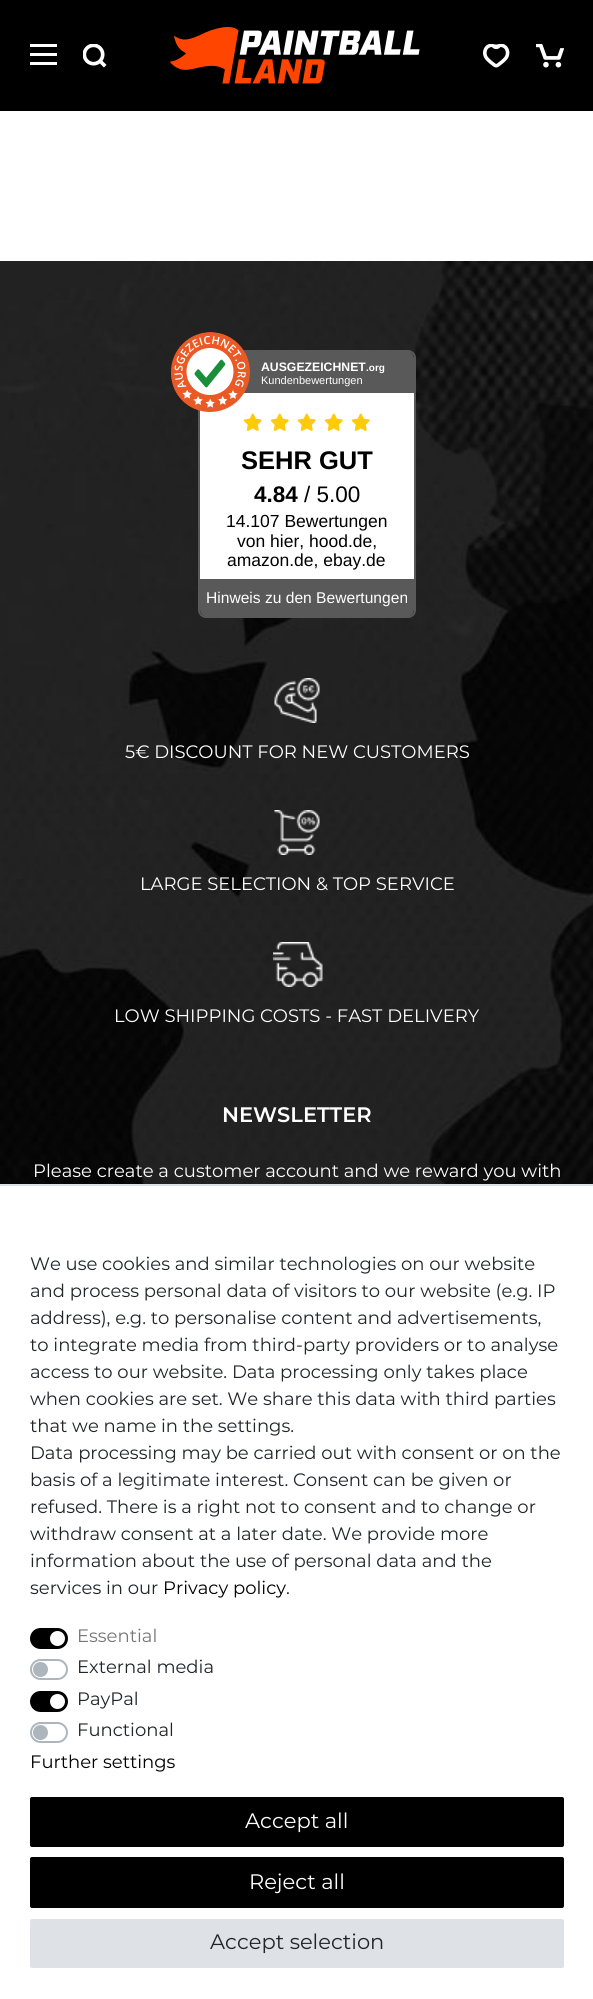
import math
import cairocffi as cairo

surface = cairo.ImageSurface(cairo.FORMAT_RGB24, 593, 1999)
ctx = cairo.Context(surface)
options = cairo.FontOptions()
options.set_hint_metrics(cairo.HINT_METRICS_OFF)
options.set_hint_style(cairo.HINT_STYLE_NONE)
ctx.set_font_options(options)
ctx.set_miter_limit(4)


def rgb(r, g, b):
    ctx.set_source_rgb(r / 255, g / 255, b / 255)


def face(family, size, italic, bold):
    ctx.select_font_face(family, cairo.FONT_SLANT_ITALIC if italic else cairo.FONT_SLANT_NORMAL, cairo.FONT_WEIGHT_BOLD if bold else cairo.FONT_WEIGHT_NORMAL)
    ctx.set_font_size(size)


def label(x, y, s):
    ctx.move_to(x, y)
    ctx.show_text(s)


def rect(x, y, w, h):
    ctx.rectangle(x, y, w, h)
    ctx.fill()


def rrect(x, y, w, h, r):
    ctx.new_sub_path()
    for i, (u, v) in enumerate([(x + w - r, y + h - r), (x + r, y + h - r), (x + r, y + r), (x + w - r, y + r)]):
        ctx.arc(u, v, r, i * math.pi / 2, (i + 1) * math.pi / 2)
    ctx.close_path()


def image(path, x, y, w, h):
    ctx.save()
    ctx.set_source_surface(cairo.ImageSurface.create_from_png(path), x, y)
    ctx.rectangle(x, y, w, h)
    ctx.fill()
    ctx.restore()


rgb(255, 255, 255)
ctx.paint()
rgb(0, 0, 0)
rect(0, 0, 593, 111)
rgb(255, 255, 255)
rect(30, 53, 27, 3)
rect(30, 44, 27, 3)
rect(30, 62, 27, 3)
image('image0.png', 83, 44, 24, 24)
image('image1.png', 170, 27, 250, 57)
image('image2.png', 483, 44, 27, 24)
image('image3.png', 536, 44, 28, 24)
image('image4.png', 0, 261, 593, 923)
rrect(199, 351, 216, 266, 7)
rgb(89, 89, 89)
ctx.stroke()
ctx.new_path()
ctx.move_to(208, 351)
ctx.line_to(406, 351)
ctx.curve_to(410.5, 351, 414, 354.5, 414, 359)
ctx.line_to(414, 393)
ctx.line_to(200, 393)
ctx.line_to(200, 359)
ctx.curve_to(200, 354.5, 203.5, 351, 208, 351)
ctx.close_path()
ctx.fill()
rgb(255, 255, 255)
rect(200, 393, 214, 186)
image('image5.png', 171, 332, 79, 80)
face('Liberation Sans', 12.25, 0, 1)
label(261, 371, 'AUSGEZEICHNET')
face('Liberation Sans', 10, 0, 1)
label(366, 371, '.org')
face('Liberation Sans', 11, 0, 0)
label(261, 384, 'Kundenbewertungen')
image('image6.png', 243, 413, 19, 18)
image('image6.png', 270, 413, 19, 18)
image('image6.png', 297, 413, 19, 18)
image('image6.png', 324, 413, 19, 18)
image('image6.png', 351, 413, 19, 18)
face('Liberation Sans', 25.5, 0, 1)
rgb(0, 0, 0)
label(241, 469, 'SEHR GUT')
face('Liberation Sans', 22.5, 0, 1)
label(254, 502, '4.84')
face('Liberation Sans', 22.5, 0, 0)
label(304, 502, '/ 5.00')
face('Liberation Sans', 17.5, 0, 0)
label(226, 527, '14.107 Bewertungen')
label(237, 547, 'von hier, hood.de,')
label(227, 566, 'amazon.de, ebay.de')
rgb(89, 89, 89)
ctx.new_path()
ctx.move_to(200, 579)
ctx.line_to(414, 579)
ctx.line_to(414, 609)
ctx.curve_to(414, 613.5, 410.5, 617, 406, 617)
ctx.line_to(208, 617)
ctx.curve_to(203.5, 617, 200, 613.5, 200, 609)
ctx.close_path()
ctx.fill()
face('Liberation Sans', 15.6, 0, 0)
rgb(255, 255, 255)
label(206, 603, 'Hinweis zu den Bewertungen')
image('image7.png', 274, 678, 46, 45)
face('Montserrat', 18, 0, 0)
label(125, 758, '5€ DISCOUNT FOR NEW CUSTOMERS')
image('image8.png', 274, 810, 46, 45)
label(140, 890, 'LARGE SELECTION & TOP SERVICE')
image('image9.png', 273, 942, 50, 45)
label(114, 1022, 'LOW SHIPPING COSTS - FAST DELIVERY')
face('Montserrat SemiBold', 21, 0, 0)
label(222, 1122, 'NEWSLETTER')
face('Montserrat', 18, 0, 0)
label(33, 1177, 'Please create a customer account and we reward you with')
rgb(222, 226, 230)
rect(0, 1184, 593, 2)
rgb(33, 37, 41)
label(30, 1270, 'We use cookies and similar technologies on our website')
label(30, 1297, 'and process personal data of visitors to our website (e.g. IP')
label(30, 1324, 'address), e.g. to personalise content and advertisements,')
label(30, 1351, 'to integrate media from third-party providers or to analyse')
label(30, 1378, 'access to our website. Data processing only takes place')
label(30, 1405, 'when cookies are set. We share this data with third parties')
label(30, 1432, 'that we name in the settings.')
label(30, 1459, 'Data processing may be carried out with consent or on the')
label(30, 1486, 'basis of a legitimate interest. Consent can be given or')
label(30, 1513, 'refused. There is a right not to consent and to change or')
label(30, 1540, 'withdraw consent at a later date. We provide more')
label(30, 1567, 'information about the use of personal data and the')
label(30, 1594, 'services in our')
rgb(0, 0, 0)
label(163, 1594, 'Privacy policy')
rgb(33, 37, 41)
label(286, 1594, '.')
rgb(0, 0, 0)
rrect(31, 1629, 36, 19, 9.5)
ctx.fill_preserve()
ctx.stroke()
rgb(118, 118, 118)
label(77, 1642, 'Essential')
rgb(255, 255, 255)
ctx.new_path()
ctx.arc(57.5, 1638.5, 7.5, 0, 2 * math.pi)
ctx.fill()
rrect(31, 1660, 36, 19, 9.5)
rgb(173, 181, 189)
ctx.stroke()
rgb(33, 37, 41)
label(77, 1673, 'External media')
rgb(173, 181, 189)
ctx.new_path()
ctx.arc(40.5, 1669.5, 7.5, 0, 2 * math.pi)
ctx.fill()
rgb(0, 0, 0)
rrect(31, 1692, 36, 19, 9.5)
ctx.fill_preserve()
ctx.stroke()
rgb(33, 37, 41)
label(77, 1705, 'PayPal')
rgb(255, 255, 255)
ctx.new_path()
ctx.arc(57.5, 1701.5, 7.5, 0, 2 * math.pi)
ctx.fill()
rrect(31, 1723, 36, 19, 9.5)
rgb(173, 181, 189)
ctx.stroke()
rgb(33, 37, 41)
label(77, 1736, 'Functional')
rgb(173, 181, 189)
ctx.new_path()
ctx.arc(40.5, 1732.5, 7.5, 0, 2 * math.pi)
ctx.fill()
rgb(0, 0, 0)
label(30, 1768, 'Further settings')
rrect(31, 1798, 532, 48, 1)
ctx.fill_preserve()
ctx.stroke()
face('Montserrat', 21, 0, 0)
rgb(255, 255, 255)
label(245, 1828, 'Accept all')
rgb(0, 0, 0)
rrect(31, 1858, 532, 49, 1)
ctx.fill_preserve()
ctx.stroke()
rgb(255, 255, 255)
label(249, 1889, 'Reject all')
rgb(222, 226, 230)
rrect(31, 1920, 532, 47, 1)
ctx.fill_preserve()
ctx.stroke()
rgb(33, 37, 41)
label(210, 1949, 'Accept selection')
surface.write_to_png('render.png')
